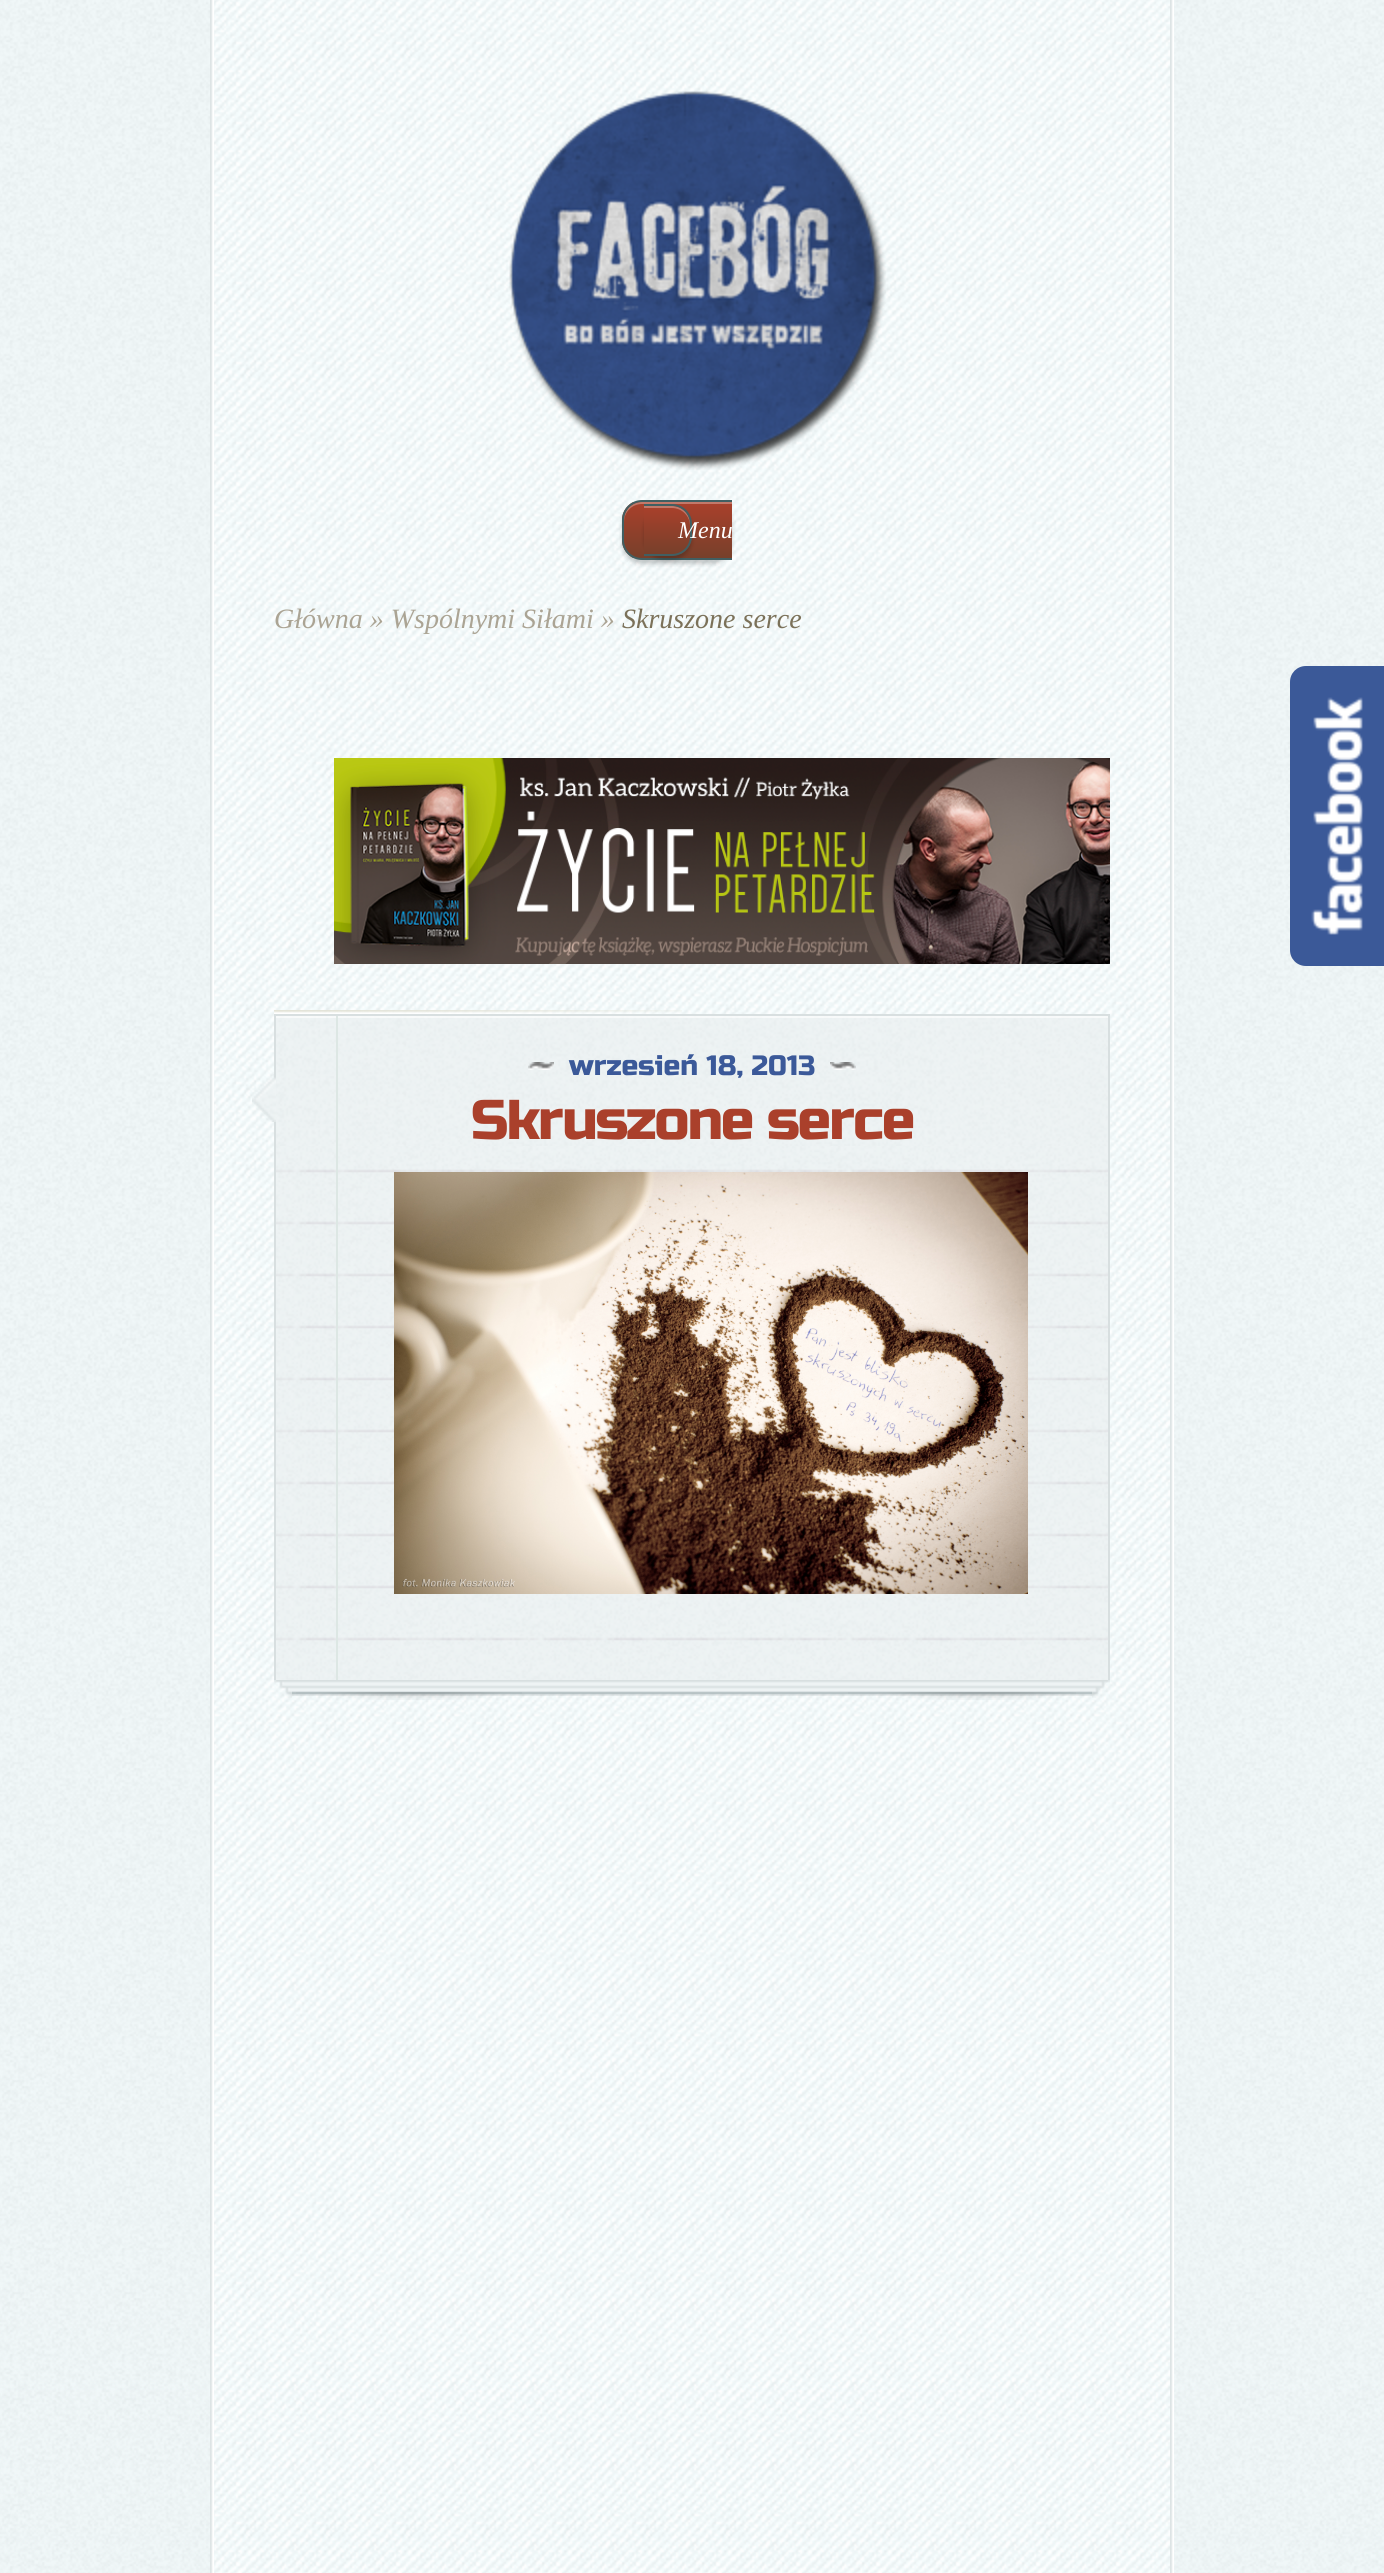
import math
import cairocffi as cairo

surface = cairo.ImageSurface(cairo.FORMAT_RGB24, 1384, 2573)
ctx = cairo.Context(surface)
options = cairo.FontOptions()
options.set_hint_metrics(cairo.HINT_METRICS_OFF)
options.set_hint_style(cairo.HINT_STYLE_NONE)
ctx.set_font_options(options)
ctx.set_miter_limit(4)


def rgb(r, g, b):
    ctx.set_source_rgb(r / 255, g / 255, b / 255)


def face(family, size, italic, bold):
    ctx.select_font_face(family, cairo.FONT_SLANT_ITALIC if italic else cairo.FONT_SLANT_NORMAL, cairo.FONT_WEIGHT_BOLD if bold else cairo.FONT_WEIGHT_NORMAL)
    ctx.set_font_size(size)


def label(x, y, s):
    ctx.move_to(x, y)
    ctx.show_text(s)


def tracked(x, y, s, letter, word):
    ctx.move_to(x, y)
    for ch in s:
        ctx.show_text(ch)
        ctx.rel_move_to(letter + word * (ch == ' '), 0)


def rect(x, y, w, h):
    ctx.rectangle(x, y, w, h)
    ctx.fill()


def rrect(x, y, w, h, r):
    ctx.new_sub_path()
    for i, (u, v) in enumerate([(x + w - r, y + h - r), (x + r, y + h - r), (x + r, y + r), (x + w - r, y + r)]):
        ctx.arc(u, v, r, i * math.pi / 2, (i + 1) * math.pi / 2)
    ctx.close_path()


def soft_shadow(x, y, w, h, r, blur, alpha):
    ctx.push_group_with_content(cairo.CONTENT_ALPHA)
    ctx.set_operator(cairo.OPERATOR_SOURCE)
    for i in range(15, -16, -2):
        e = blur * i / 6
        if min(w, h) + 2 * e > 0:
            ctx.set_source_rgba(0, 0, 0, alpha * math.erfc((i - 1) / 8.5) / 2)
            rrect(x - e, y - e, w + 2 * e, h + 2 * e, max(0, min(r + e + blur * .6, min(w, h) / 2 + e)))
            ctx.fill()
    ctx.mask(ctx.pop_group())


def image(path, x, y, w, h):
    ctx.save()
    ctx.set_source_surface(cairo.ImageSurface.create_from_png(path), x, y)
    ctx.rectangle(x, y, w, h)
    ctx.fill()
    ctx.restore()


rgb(255, 255, 255)
ctx.paint()
image('image0.png', 0, 0, 1384, 2573)
image('image1.png', 214, 0, 956, 2573)
image('image2.png', 210, 0, 4, 2573)
image('image3.png', 509, 91, 377, 379)
rgb(0, 0, 0)
soft_shadow(622, 504, 110, 60, 20, 2, 0.2)
ctx.save()
ctx.new_path()
ctx.move_to(642, 500)
ctx.line_to(732, 500)
ctx.line_to(732, 560)
ctx.line_to(642, 560)
ctx.curve_to(631, 560, 622, 551, 622, 540)
ctx.line_to(622, 520)
ctx.curve_to(622, 509, 631, 500, 642, 500)
ctx.close_path()
ctx.clip()
gradient = cairo.LinearGradient(678, 502, 678, 558)
gradient.add_color_stop_rgba(0, 0.667, 0.251, 0.169, 1)
gradient.add_color_stop_rgba(1, 0.467, 0.251, 0.169, 1)
ctx.set_source(gradient)
rect(622, 502, 110, 56)
ctx.restore()
ctx.set_source_rgba(1, 1, 1, 0.3)
ctx.new_path()
ctx.move_to(642, 504)
ctx.line_to(732, 504)
ctx.line_to(732, 502)
ctx.line_to(642, 502)
ctx.curve_to(632, 502, 624, 510, 624, 520)
ctx.line_to(624, 522)
ctx.curve_to(624, 512, 632, 504, 642, 504)
ctx.close_path()
ctx.fill()
rgb(65, 95, 98)
ctx.set_fill_rule(cairo.FILL_RULE_EVEN_ODD)
ctx.new_path()
ctx.move_to(642, 500)
ctx.line_to(732, 500)
ctx.line_to(732, 560)
ctx.line_to(642, 560)
ctx.curve_to(631, 560, 622, 551, 622, 540)
ctx.line_to(622, 520)
ctx.curve_to(622, 509, 631, 500, 642, 500)
ctx.close_path()
ctx.move_to(642, 502)
ctx.line_to(732, 502)
ctx.line_to(732, 558)
ctx.line_to(642, 558)
ctx.curve_to(632, 558, 624, 550, 624, 540)
ctx.line_to(624, 520)
ctx.curve_to(624, 510, 632, 502, 642, 502)
ctx.close_path()
ctx.fill()
rgb(0, 0, 0)
soft_shadow(644, 508, 48, 52, 20, 2, 0.2)
ctx.save()
ctx.set_fill_rule(cairo.FILL_RULE_WINDING)
ctx.new_path()
ctx.move_to(644, 504)
ctx.line_to(672, 504)
ctx.curve_to(683, 504, 692, 513, 692, 524)
ctx.line_to(692, 536)
ctx.curve_to(692, 547, 683, 556, 672, 556)
ctx.line_to(644, 556)
ctx.close_path()
ctx.clip()
gradient = cairo.LinearGradient(667, 506, 667, 554)
gradient.add_color_stop_rgba(0, 0.667, 0.251, 0.169, 1)
gradient.add_color_stop_rgba(1, 0.467, 0.251, 0.169, 1)
ctx.set_source(gradient)
rect(644, 506, 48, 48)
ctx.restore()
ctx.set_source_rgba(1, 1, 1, 0.3)
ctx.set_fill_rule(cairo.FILL_RULE_WINDING)
ctx.new_path()
ctx.move_to(644, 508)
ctx.line_to(672, 508)
ctx.curve_to(682, 508, 690, 516, 690, 526)
ctx.line_to(690, 524)
ctx.curve_to(690, 514, 682, 506, 672, 506)
ctx.line_to(644, 506)
ctx.close_path()
ctx.fill()
rgb(65, 95, 98)
ctx.set_fill_rule(cairo.FILL_RULE_EVEN_ODD)
ctx.new_path()
ctx.move_to(644, 504)
ctx.line_to(672, 504)
ctx.curve_to(683, 504, 692, 513, 692, 524)
ctx.line_to(692, 536)
ctx.curve_to(692, 547, 683, 556, 672, 556)
ctx.line_to(644, 556)
ctx.close_path()
ctx.move_to(644, 506)
ctx.line_to(672, 506)
ctx.curve_to(682, 506, 690, 514, 690, 524)
ctx.line_to(690, 536)
ctx.curve_to(690, 546, 682, 554, 672, 554)
ctx.line_to(644, 554)
ctx.close_path()
ctx.fill()
face('Liberation Serif', 24, 1, 0)
rgb(255, 255, 255)
label(678, 538, 'Menu')
image('image2.png', 1170, 0, 4, 2573)
face('Liberation Serif', 28, 1, 0)
rgb(171, 164, 148)
label(274, 628, 'Główna » Wspólnymi Siłami »')
rgb(123, 113, 89)
label(622, 628, 'Skruszone serce')
image('image4.png', 274, 1010, 408, 4)
image('image5.png', 334, 758, 776, 206)
rgb(216, 223, 224)
rect(274, 1014, 836, 2)
rect(274, 1014, 2, 666)
image('image6.png', 252, 1074, 24, 48)
rect(1108, 1014, 2, 666)
image('image7.png', 276, 1146, 832, 534)
image('image8.png', 276, 1016, 832, 130)
ctx.set_source_rgba(1, 1, 1, 0.6)
rect(276, 1016, 832, 2)
rgb(221, 231, 228)
rect(336, 1016, 2, 664)
image('image9.png', 528, 1062, 26, 8)
face('Russo One', 28, 0, 0)
rgb(59, 89, 153)
label(569, 1075, 'wrzesień 18, 2013')
image('image10.png', 830, 1062, 26, 8)
face('Russo One', 56, 0, 0)
rgb(170, 64, 43)
tracked(471, 1139, 'Skruszone serce', -2, 0)
image('image11.png', 394, 1172, 634, 422)
image('image12.png', 274, 1680, 18, 18)
image('image13.png', 1092, 1680, 18, 18)
image('image14.png', 292, 1680, 800, 16)
image('image15.png', 296, 1692, 226, 8)
image('image16.png', 848, 1692, 228, 8)
rgb(59, 89, 152)
ctx.new_path()
ctx.move_to(1306, 666)
ctx.line_to(1384, 666)
ctx.line_to(1384, 966)
ctx.line_to(1306, 966)
ctx.curve_to(1297, 966, 1290, 959, 1290, 950)
ctx.line_to(1290, 682)
ctx.curve_to(1290, 673, 1297, 666, 1306, 666)
ctx.close_path()
ctx.fill()
image('image17.png', 1311, 697, 53, 238)
surface.write_to_png('render.png')
